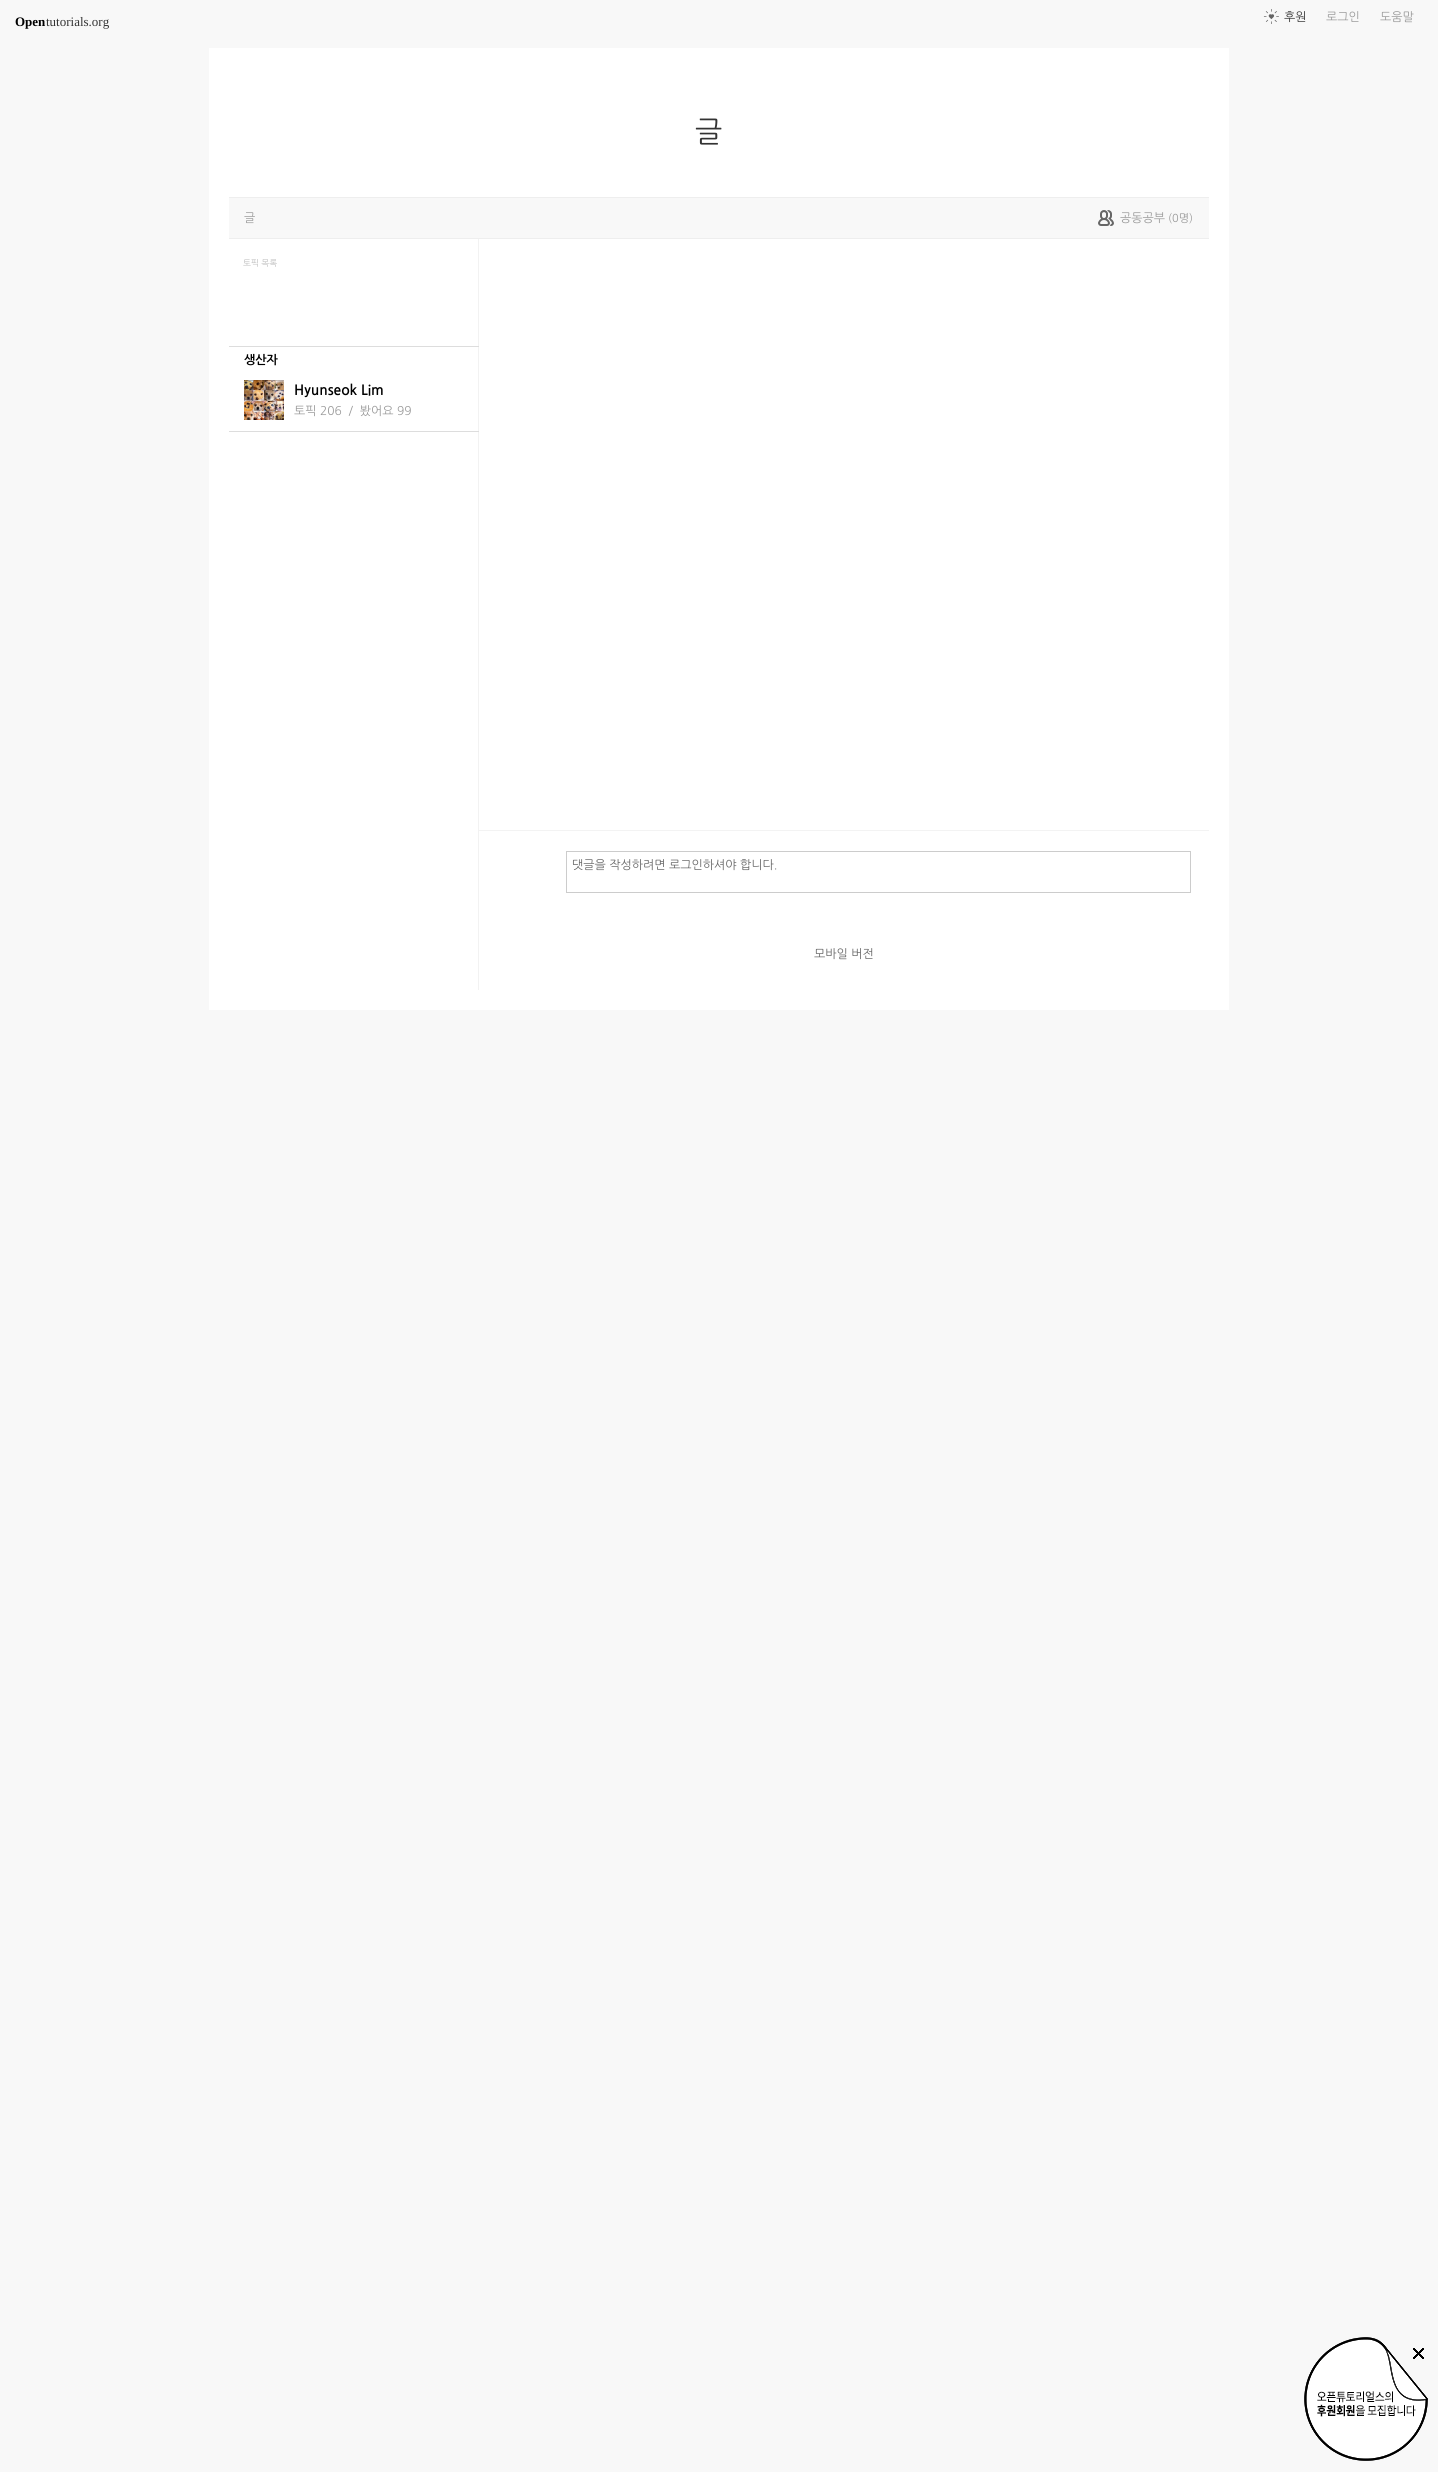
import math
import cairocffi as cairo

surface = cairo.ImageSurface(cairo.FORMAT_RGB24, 1438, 2472)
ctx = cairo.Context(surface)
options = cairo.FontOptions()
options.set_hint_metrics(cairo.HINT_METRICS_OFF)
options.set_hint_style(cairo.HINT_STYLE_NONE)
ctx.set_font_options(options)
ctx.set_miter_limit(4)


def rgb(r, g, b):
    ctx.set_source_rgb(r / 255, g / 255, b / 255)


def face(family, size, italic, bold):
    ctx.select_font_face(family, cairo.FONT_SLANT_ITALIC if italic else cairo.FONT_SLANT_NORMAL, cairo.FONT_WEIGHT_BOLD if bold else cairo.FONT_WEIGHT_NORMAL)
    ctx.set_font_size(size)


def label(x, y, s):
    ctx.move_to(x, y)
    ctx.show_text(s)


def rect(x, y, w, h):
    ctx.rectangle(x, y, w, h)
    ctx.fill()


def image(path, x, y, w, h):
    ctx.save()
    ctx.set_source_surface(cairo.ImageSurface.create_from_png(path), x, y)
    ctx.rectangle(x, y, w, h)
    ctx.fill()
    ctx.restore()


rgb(248, 248, 248)
ctx.paint()
face('Liberation Serif', 13, 0, 1)
rgb(0, 0, 0)
label(15, 26, 'Open')
face('Liberation Serif', 13, 0, 0)
rgb(51, 51, 51)
label(46, 26, 'tutorials.org')
image('image0.png', 1263, 9, 16, 15)
face('NanumGothic', 12, 0, 0)
label(1284, 21, '후원')
rgb(153, 153, 153)
label(1326, 21, '로그인')
label(1380, 21, '도움말')
rgb(255, 255, 255)
rect(209, 48, 1020, 962)
face('NanumGothic', 29, 0, 0)
rgb(51, 51, 51)
label(695, 142, '글')
rgb(248, 248, 248)
rect(229, 198, 980, 40)
rgb(238, 238, 238)
rect(229, 197, 980, 1)
rect(229, 238, 980, 1)
face('NanumGothic', 12, 0, 0)
rgb(153, 153, 153)
label(244, 222, '글')
image('image1.png', 1098, 210, 16, 16)
label(1120, 222, '공동공부')
face('NanumGothic', 11, 0, 0)
label(1168, 222, '(0명)')
rgb(242, 242, 242)
rect(478, 239, 1, 751)
face('NanumGothic', 8.5, 0, 0)
rgb(187, 187, 187)
label(243, 266, '토픽 목록')
rgb(221, 221, 221)
rect(229, 346, 250, 1)
rect(229, 431, 250, 1)
face('NanumGothic', 12, 0, 1)
rgb(0, 0, 0)
label(244, 364, '생산자')
image('image2.png', 244, 380, 40, 40)
face('NanumGothic', 14, 0, 1)
label(294, 395, 'Hyunseok Lim')
face('NanumGothic', 12, 0, 0)
rgb(153, 153, 153)
label(294, 415, '토픽 206  /  봤어요 99')
rgb(243, 243, 243)
rect(479, 830, 730, 1)
ctx.rectangle(566.5, 851.5, 624, 41)
rgb(204, 204, 204)
ctx.set_line_width(1)
ctx.stroke()
rgb(102, 102, 102)
label(572, 869, '댓글을 작성하려면 로그인하셔야 합니다.')
label(814, 958, '모바일 버전')
image('image3.png', 1304, 2337, 124, 124)
image('image4.png', 1413, 2348, 11, 11)
surface.write_to_png('render.png')
